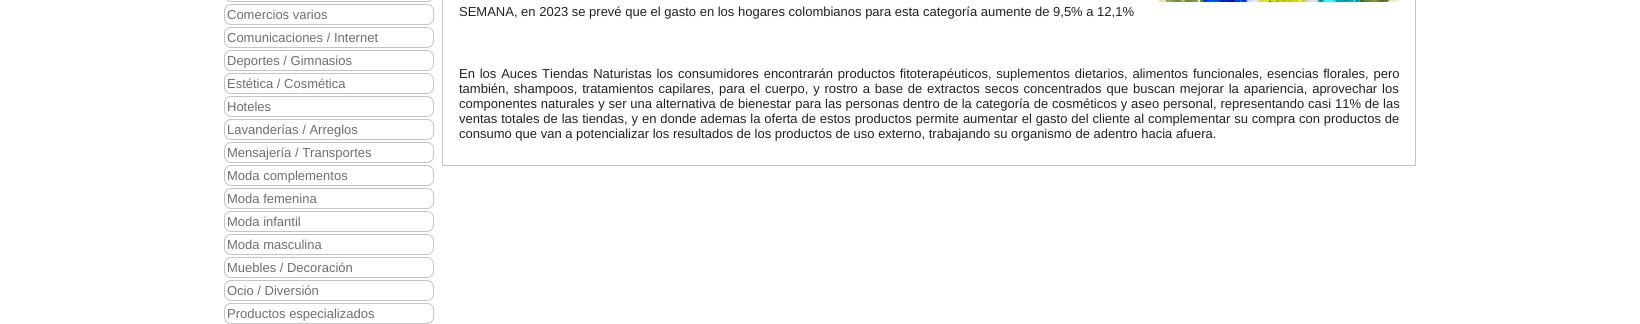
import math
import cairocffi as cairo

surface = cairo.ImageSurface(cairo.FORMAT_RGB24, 1640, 324)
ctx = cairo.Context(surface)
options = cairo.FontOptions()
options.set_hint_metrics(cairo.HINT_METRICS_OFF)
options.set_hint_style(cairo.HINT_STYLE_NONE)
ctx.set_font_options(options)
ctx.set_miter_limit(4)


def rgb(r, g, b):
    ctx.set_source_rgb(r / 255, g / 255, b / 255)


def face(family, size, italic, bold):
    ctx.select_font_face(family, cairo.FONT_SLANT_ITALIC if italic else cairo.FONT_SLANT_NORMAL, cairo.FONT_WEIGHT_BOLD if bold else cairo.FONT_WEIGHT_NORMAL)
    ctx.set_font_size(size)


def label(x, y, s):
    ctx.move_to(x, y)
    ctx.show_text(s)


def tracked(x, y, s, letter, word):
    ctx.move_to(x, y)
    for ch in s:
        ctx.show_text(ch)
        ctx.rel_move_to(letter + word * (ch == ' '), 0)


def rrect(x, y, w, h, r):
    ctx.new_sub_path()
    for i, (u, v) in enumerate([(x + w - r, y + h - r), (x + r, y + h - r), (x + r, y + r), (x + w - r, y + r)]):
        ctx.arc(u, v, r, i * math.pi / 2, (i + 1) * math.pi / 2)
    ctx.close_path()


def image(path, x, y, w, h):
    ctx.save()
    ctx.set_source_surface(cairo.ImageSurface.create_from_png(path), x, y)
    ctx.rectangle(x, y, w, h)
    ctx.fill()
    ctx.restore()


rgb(255, 255, 255)
ctx.paint()
rrect(224.5, -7.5, 209, 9, 6.5)
rgb(196, 196, 196)
ctx.set_line_width(1)
ctx.stroke()
rrect(224.5, 4.5, 209, 20, 6.5)
ctx.stroke()
face('Liberation Sans', 13, 0, 0)
rgb(111, 110, 110)
label(227, 19, 'Comercios varios')
rrect(224.5, 27.5, 209, 20, 6.5)
rgb(196, 196, 196)
ctx.stroke()
rgb(111, 110, 110)
label(227, 42, 'Comunicaciones / Internet')
rrect(224.5, 50.5, 209, 20, 6.5)
rgb(196, 196, 196)
ctx.stroke()
rgb(111, 110, 110)
label(227, 65, 'Deportes / Gimnasios')
rrect(224.5, 73.5, 209, 20, 6.5)
rgb(196, 196, 196)
ctx.stroke()
rgb(111, 110, 110)
label(227, 88, 'Estética / Cosmética')
rrect(224.5, 96.5, 209, 20, 6.5)
rgb(196, 196, 196)
ctx.stroke()
rgb(111, 110, 110)
label(227, 111, 'Hoteles')
rrect(224.5, 119.5, 209, 20, 6.5)
rgb(196, 196, 196)
ctx.stroke()
rgb(111, 110, 110)
label(227, 134, 'Lavanderías / Arreglos')
rrect(224.5, 142.5, 209, 20, 6.5)
rgb(196, 196, 196)
ctx.stroke()
rgb(111, 110, 110)
label(227, 157, 'Mensajería / Transportes')
rrect(224.5, 165.5, 209, 20, 6.5)
rgb(196, 196, 196)
ctx.stroke()
rgb(111, 110, 110)
label(227, 180, 'Moda complementos')
rrect(224.5, 188.5, 209, 20, 6.5)
rgb(196, 196, 196)
ctx.stroke()
rgb(111, 110, 110)
label(227, 203, 'Moda femenina')
rrect(224.5, 211.5, 209, 20, 6.5)
rgb(196, 196, 196)
ctx.stroke()
rgb(111, 110, 110)
label(227, 226, 'Moda infantil')
rrect(224.5, 234.5, 209, 20, 6.5)
rgb(196, 196, 196)
ctx.stroke()
rgb(111, 110, 110)
label(227, 249, 'Moda masculina')
rrect(224.5, 257.5, 209, 20, 6.5)
rgb(196, 196, 196)
ctx.stroke()
rgb(111, 110, 110)
label(227, 272, 'Muebles / Decoración')
rrect(224.5, 280.5, 209, 20, 6.5)
rgb(196, 196, 196)
ctx.stroke()
rgb(111, 110, 110)
label(227, 295, 'Ocio / Diversión')
rrect(224.5, 303.5, 209, 20, 6.5)
rgb(196, 196, 196)
ctx.stroke()
rgb(111, 110, 110)
label(227, 318, 'Productos especializados')
ctx.rectangle(442.5, -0.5, 973, 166)
rgb(196, 196, 196)
ctx.stroke()
image('image0.png', 1159, 0, 240, 2)
rgb(33, 33, 33)
label(459, 16, 'SEMANA, en 2023 se prevé que el gasto en los hogares colombianos para esta categoría aumente de 9,5% a 12,1%')
tracked(459, 78, 'En los Auces Tiendas Naturistas los consumidores encontrarán productos fitoterapéuticos, suplementos dietarios, alimentos funcionales, esencias florales, pero', 0, 1.2)
tracked(459, 93, 'también, shampoos, tratamientos capilares, para el cuerpo, y rostro a base de extractos secos concentrados que buscan mejorar la apariencia, aprovechar los', 0, 1.25)
tracked(459, 108, 'componentes naturales y ser una alternativa de bienestar para las personas dentro de la categoría de cosméticos y aseo personal, representando casi 11% de las', 0, 0.2)
tracked(459, 123, 'ventas totales de las tiendas, y en donde ademas la oferta de estos productos permite aumentar el gasto del cliente al complementar su compra con productos de', 0, 0.25)
label(459, 138, 'consumo que van a potencializar los resultados de los productos de uso externo, trabajando su organismo de adentro hacia afuera.')
surface.write_to_png('render.png')
